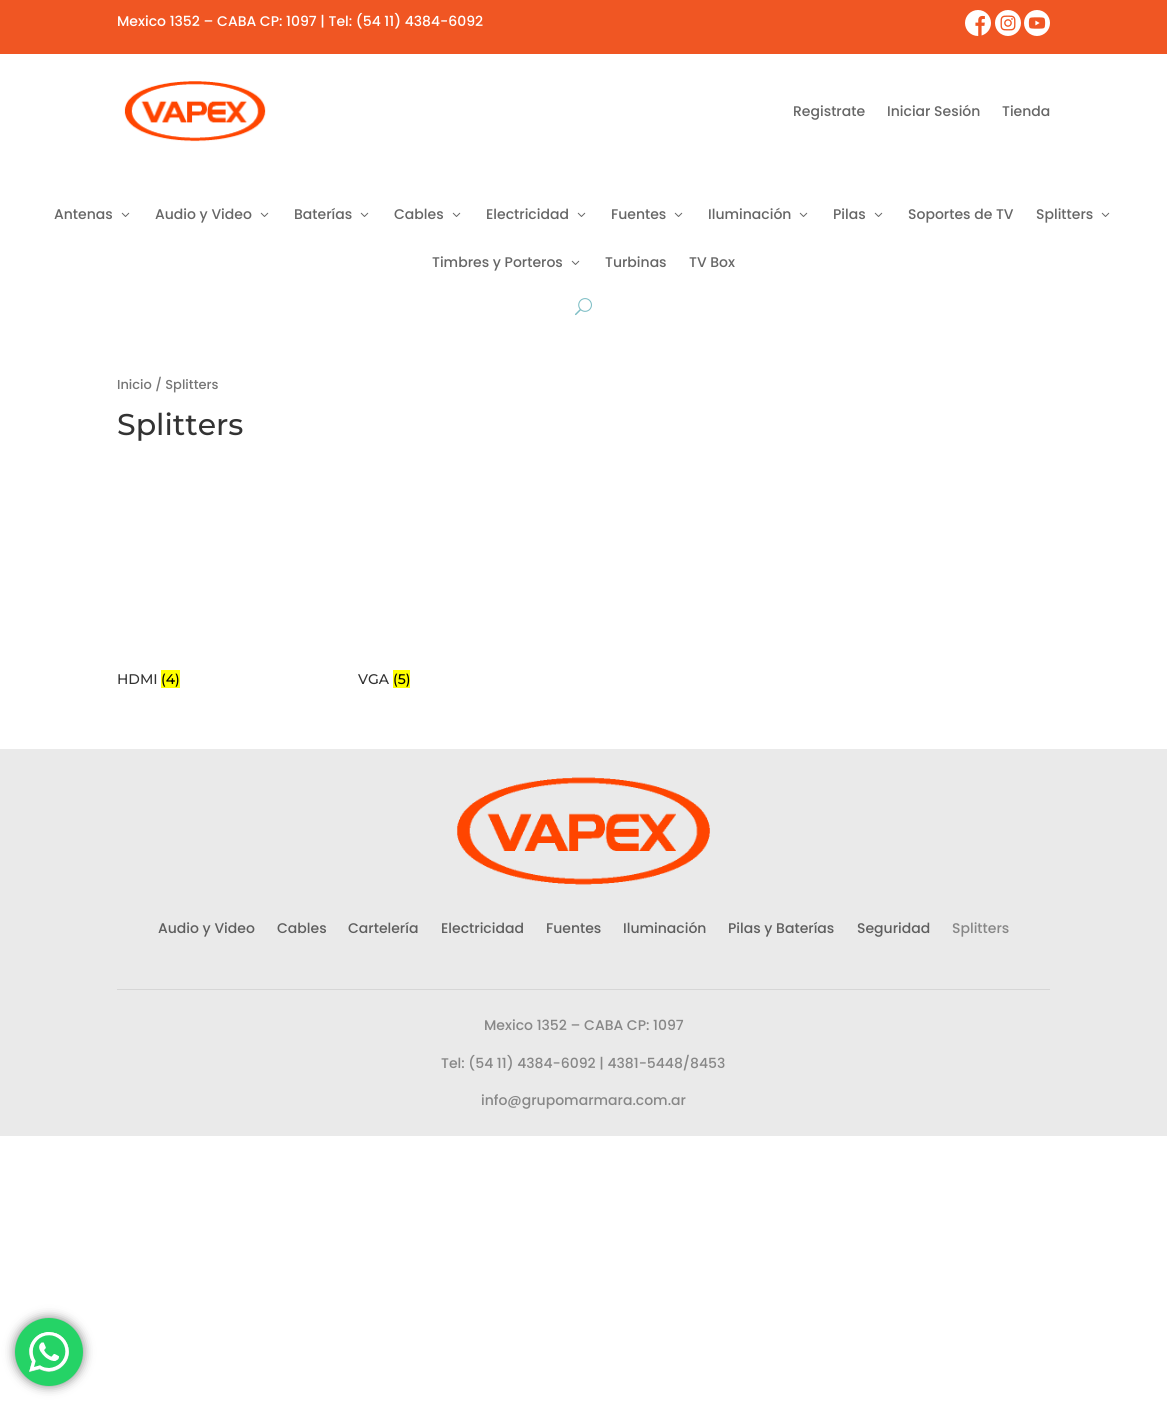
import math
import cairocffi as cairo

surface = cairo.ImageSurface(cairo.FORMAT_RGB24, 1167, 1401)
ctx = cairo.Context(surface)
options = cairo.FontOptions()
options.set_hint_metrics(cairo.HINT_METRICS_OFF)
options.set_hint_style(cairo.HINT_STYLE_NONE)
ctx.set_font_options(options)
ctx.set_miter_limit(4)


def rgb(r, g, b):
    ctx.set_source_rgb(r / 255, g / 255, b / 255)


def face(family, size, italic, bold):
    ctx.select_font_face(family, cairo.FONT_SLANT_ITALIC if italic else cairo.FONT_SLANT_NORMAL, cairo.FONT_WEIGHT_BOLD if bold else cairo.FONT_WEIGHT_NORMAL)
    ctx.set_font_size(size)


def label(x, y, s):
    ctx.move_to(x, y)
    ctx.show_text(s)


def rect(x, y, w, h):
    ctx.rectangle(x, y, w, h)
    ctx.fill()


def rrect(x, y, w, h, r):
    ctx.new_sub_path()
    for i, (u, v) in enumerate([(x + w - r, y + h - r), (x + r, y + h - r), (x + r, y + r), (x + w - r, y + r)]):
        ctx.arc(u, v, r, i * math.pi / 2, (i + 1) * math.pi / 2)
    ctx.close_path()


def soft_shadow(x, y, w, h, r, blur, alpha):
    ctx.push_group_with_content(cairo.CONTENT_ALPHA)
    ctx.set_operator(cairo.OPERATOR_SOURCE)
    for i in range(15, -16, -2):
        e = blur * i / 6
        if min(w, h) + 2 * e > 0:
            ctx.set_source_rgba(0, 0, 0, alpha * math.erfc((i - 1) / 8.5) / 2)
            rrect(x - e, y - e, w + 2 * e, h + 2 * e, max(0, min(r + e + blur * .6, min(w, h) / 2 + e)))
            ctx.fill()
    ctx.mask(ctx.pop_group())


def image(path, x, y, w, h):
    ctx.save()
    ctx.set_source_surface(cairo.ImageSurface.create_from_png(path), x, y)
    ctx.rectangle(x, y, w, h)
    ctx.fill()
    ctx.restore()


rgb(255, 255, 255)
ctx.paint()
rgb(240, 86, 35)
rect(0, 0, 1167, 54)
face('Poppins Medium', 14, 0, 0)
rgb(255, 255, 255)
label(117, 26, 'Mexico 1352 – CABA CP: 1097 | Tel: (54 11) 4384-6092')
image('image0.png', 965, 10, 26, 26)
image('image1.png', 995, 10, 26, 26)
image('image2.png', 1024, 10, 26, 26)
image('image3.png', 124, 81, 142, 61)
rgb(102, 102, 102)
label(793, 116, 'Registrate')
label(887, 116, 'Iniciar Sesión')
label(1002, 116, 'Tienda')
label(54, 219, 'Antenas')
image('image4.png', 121, 212, 9, 5)
label(155, 219, 'Audio y Video')
image('image4.png', 260, 212, 9, 5)
label(294, 219, 'Baterías')
image('image4.png', 360, 212, 9, 5)
label(394, 219, 'Cables')
image('image4.png', 452, 212, 9, 5)
label(486, 219, 'Electricidad')
image('image4.png', 577, 212, 9, 5)
label(611, 219, 'Fuentes')
image('image4.png', 674, 212, 9, 5)
label(708, 219, 'Iluminación')
image('image4.png', 799, 212, 9, 5)
label(833, 219, 'Pilas')
image('image4.png', 874, 212, 9, 5)
label(908, 219, 'Soportes de TV')
label(1036, 219, 'Splitters')
image('image4.png', 1101, 212, 9, 5)
label(432, 267, 'Timbres y Porteros')
image('image4.png', 571, 260, 9, 5)
label(605, 267, 'Turbinas')
label(689, 267, 'TV Box')
image('image5.png', 575, 298, 17, 18)
face('Poppins Medium', 13, 0, 0)
rgb(118, 118, 118)
label(117, 389, 'Inicio / Splitters')
face('Montserrat Thin', 30, 0, 0)
rgb(51, 51, 51)
label(117, 435, 'Splitters')
face('Montserrat Thin', 14, 0, 0)
label(117, 684, 'HDMI')
rgb(255, 255, 0)
rect(161, 670, 19, 18)
rgb(0, 0, 0)
label(161, 684, '(4)')
rgb(51, 51, 51)
label(358, 684, 'VGA')
rgb(255, 255, 0)
rect(393, 670, 17, 18)
rgb(0, 0, 0)
label(393, 684, '(5)')
rgb(234, 234, 234)
rect(0, 749, 1167, 387)
rgb(214, 214, 214)
rect(117, 989, 933, 1)
image('image6.png', 457, 777, 253, 108)
face('Poppins Medium', 14, 0, 0)
rgb(94, 94, 94)
label(158, 933, 'Audio y Video')
label(277, 933, 'Cables')
label(348, 933, 'Cartelería')
label(441, 933, 'Electricidad')
label(546, 933, 'Fuentes')
label(623, 933, 'Iluminación')
label(728, 933, 'Pilas y Baterías')
label(857, 933, 'Seguridad')
rgb(135, 135, 135)
label(952, 933, 'Splitters')
label(484, 1030, 'Mexico 1352 – CABA CP: 1097')
label(441, 1068, 'Tel: (54 11) 4384-6092 | 4381-5448/8453')
label(481, 1105, 'info@grupomarmara.com.ar')
rgb(0, 0, 0)
soft_shadow(15, 1318, 68, 68, 34, 5.5, 0.5)
rgb(37, 211, 102)
ctx.arc(49, 1352, 34, 0, 2 * math.pi)
ctx.fill()
image('image7.png', 29, 1332, 40, 40)
surface.write_to_png('render.png')
